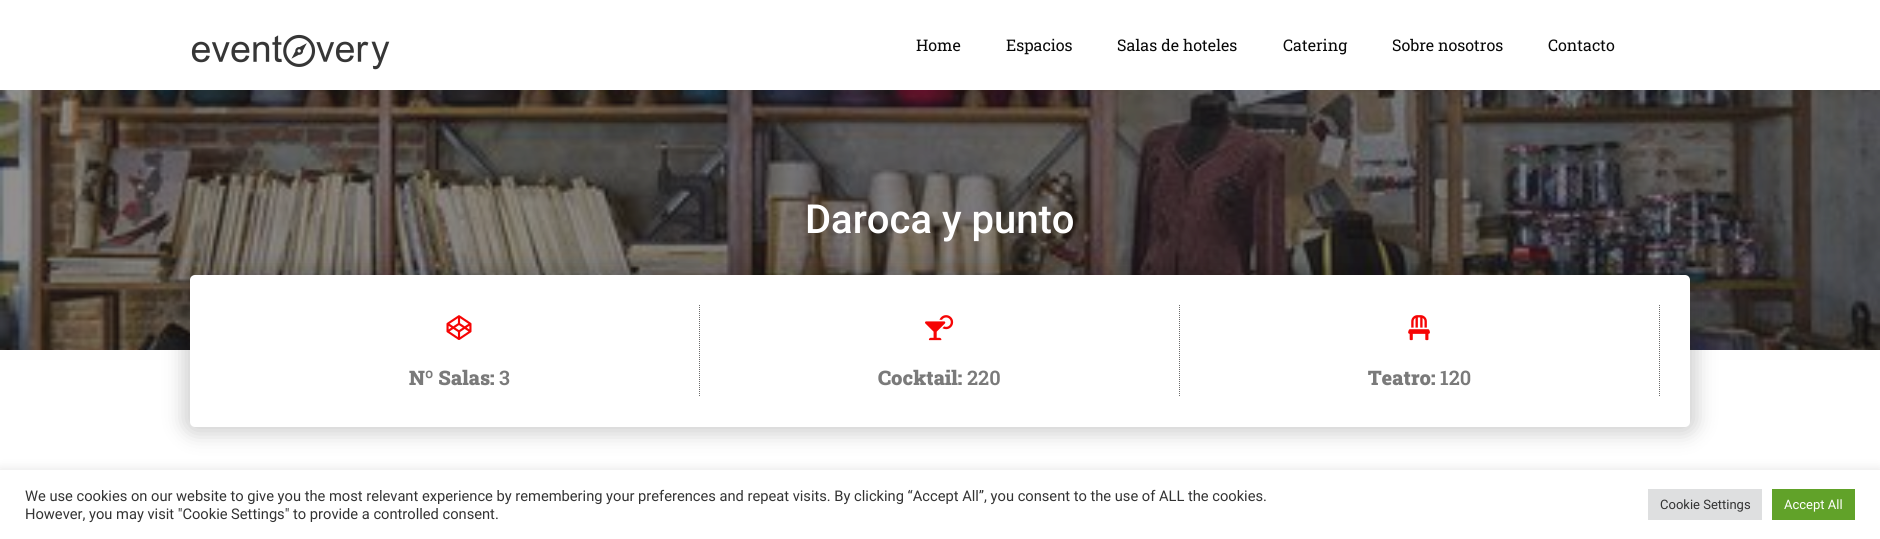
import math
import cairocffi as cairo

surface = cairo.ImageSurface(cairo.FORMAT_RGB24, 1880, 539)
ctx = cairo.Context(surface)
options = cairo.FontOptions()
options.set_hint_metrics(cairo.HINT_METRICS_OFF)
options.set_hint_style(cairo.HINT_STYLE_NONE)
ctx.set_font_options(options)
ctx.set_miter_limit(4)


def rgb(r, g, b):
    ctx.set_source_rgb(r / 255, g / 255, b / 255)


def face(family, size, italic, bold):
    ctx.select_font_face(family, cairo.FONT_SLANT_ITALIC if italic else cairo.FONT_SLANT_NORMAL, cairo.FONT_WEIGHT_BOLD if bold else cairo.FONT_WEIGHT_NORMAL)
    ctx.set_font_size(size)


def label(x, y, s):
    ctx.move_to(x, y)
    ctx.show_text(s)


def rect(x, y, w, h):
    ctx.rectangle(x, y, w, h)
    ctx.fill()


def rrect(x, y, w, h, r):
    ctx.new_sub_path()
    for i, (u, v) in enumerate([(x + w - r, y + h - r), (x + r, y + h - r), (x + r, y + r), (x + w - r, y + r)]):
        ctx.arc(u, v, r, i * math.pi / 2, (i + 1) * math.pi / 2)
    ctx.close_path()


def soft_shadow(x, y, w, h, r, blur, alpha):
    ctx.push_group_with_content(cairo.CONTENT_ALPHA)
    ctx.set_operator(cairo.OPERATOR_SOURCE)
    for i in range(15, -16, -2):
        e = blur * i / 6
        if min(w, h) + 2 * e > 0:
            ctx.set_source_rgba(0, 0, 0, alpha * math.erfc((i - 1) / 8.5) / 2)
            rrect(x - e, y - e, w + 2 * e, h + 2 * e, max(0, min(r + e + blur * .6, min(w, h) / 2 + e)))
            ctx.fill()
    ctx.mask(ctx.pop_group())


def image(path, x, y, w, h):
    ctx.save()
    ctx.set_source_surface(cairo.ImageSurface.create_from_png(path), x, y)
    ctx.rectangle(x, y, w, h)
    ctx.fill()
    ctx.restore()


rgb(255, 255, 255)
ctx.paint()
image('image0.png', 191, 34, 199, 36)
face('Roboto Slab', 16, 0, 0)
rgb(9, 9, 9)
label(916, 51, 'Home')
label(1006, 51, 'Espacios')
label(1117, 51, 'Salas de hoteles')
label(1283, 51, 'Catering')
label(1392, 51, 'Sobre nosotros')
label(1548, 51, 'Contacto')
image('image1.png', 0, 90, 1880, 260)
face('Roboto Medium', 40, 0, 0)
rgb(255, 255, 255)
label(805, 233, 'Daroca y punto')
rgb(0, 0, 0)
soft_shadow(183, 268, 1514, 166, 12, 10, 0.18)
rgb(255, 255, 255)
rrect(190, 275, 1500, 152, 5)
ctx.fill()
ctx.new_path()
ctx.move_to(699.5, 305)
ctx.line_to(699.5, 397)
rgb(108, 107, 107)
ctx.set_line_width(1)
ctx.set_dash([1, 1])
ctx.stroke()
image('image2.png', 446, 315, 26, 25)
face('Roboto Slab Black', 20, 0, 0)
rgb(122, 122, 122)
label(409, 385, 'Nº Salas:')
face('Roboto Slab SemiBold', 20, 0, 0)
label(499, 385, '3')
ctx.new_path()
ctx.move_to(1179.5, 305)
ctx.line_to(1179.5, 397)
rgb(108, 107, 107)
ctx.stroke()
image('image3.png', 925, 315, 29, 26)
face('Roboto Slab Black', 20, 0, 0)
rgb(122, 122, 122)
label(878, 385, 'Cocktail:')
face('Roboto Slab SemiBold', 20, 0, 0)
label(967, 385, '220')
ctx.new_path()
ctx.move_to(1659.5, 305)
ctx.line_to(1659.5, 397)
rgb(108, 107, 107)
ctx.stroke()
image('image4.png', 1408, 315, 22, 26)
face('Roboto Slab Black', 20, 0, 0)
rgb(122, 122, 122)
label(1368, 385, 'Teatro:')
face('Roboto Slab SemiBold', 20, 0, 0)
label(1440, 385, '120')
rgb(172, 171, 171)
soft_shadow(0, 469, 1880, 69, 0, 5, 0.3)
rgb(255, 255, 255)
rect(0, 470, 1880, 69)
face('Roboto', 14.67, 0, 0)
rgb(51, 51, 51)
label(25, 501, 'We use cookies on our website to give you the most relevant experience by remembering your preferences and repeat visits. By clicking “Accept All”, you consent to the use of ALL the cookies.')
label(25, 519, 'However, you may visit "Cookie Settings" to provide a controlled consent.')
rgb(222, 223, 224)
rect(1648, 489, 114, 31)
face('Roboto', 13, 0, 0)
rgb(51, 51, 51)
label(1660, 509, 'Cookie Settings')
rgb(97, 162, 41)
rect(1772, 489, 83, 31)
rgb(255, 255, 255)
label(1784, 509, 'Accept All')
surface.write_to_png('render.png')
